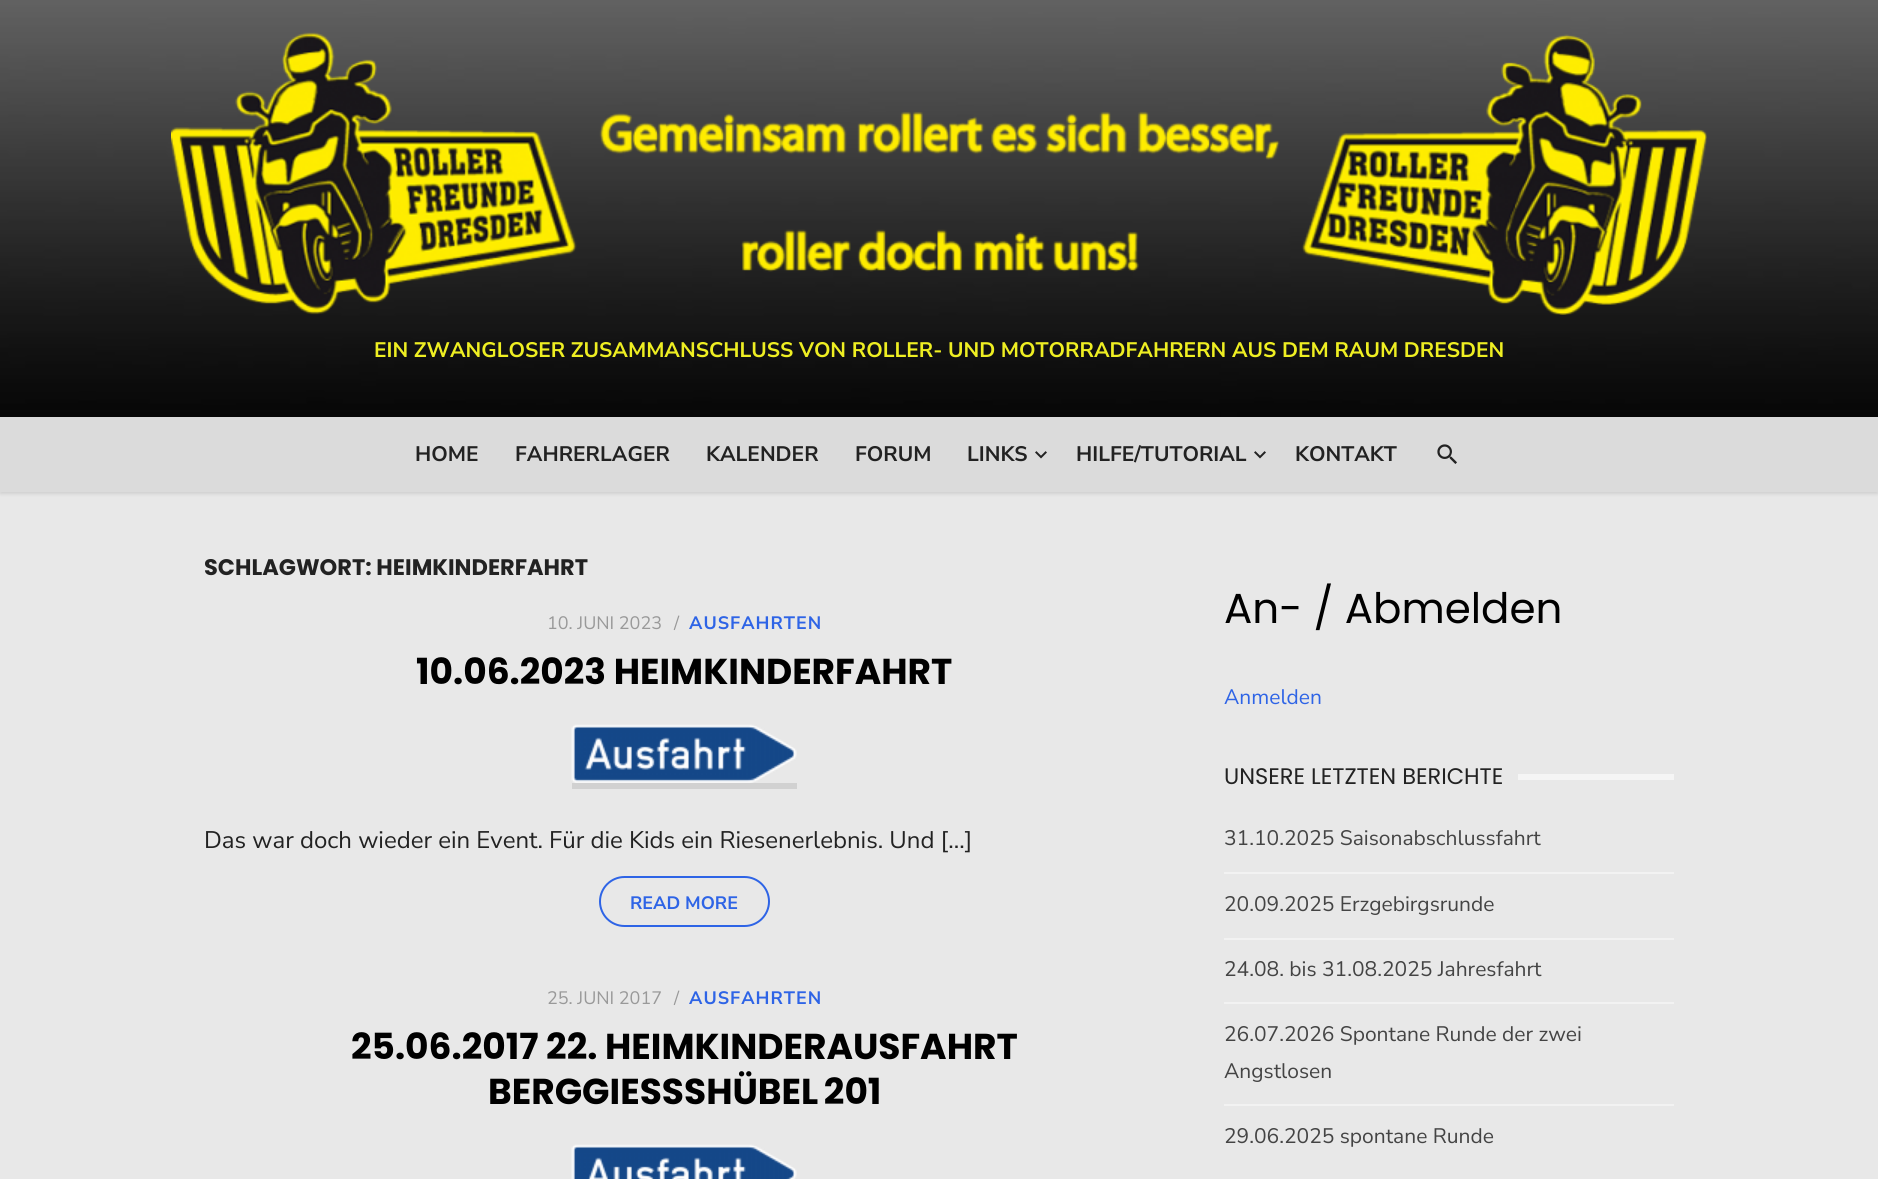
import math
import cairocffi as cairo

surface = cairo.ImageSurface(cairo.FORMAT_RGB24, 1878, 1179)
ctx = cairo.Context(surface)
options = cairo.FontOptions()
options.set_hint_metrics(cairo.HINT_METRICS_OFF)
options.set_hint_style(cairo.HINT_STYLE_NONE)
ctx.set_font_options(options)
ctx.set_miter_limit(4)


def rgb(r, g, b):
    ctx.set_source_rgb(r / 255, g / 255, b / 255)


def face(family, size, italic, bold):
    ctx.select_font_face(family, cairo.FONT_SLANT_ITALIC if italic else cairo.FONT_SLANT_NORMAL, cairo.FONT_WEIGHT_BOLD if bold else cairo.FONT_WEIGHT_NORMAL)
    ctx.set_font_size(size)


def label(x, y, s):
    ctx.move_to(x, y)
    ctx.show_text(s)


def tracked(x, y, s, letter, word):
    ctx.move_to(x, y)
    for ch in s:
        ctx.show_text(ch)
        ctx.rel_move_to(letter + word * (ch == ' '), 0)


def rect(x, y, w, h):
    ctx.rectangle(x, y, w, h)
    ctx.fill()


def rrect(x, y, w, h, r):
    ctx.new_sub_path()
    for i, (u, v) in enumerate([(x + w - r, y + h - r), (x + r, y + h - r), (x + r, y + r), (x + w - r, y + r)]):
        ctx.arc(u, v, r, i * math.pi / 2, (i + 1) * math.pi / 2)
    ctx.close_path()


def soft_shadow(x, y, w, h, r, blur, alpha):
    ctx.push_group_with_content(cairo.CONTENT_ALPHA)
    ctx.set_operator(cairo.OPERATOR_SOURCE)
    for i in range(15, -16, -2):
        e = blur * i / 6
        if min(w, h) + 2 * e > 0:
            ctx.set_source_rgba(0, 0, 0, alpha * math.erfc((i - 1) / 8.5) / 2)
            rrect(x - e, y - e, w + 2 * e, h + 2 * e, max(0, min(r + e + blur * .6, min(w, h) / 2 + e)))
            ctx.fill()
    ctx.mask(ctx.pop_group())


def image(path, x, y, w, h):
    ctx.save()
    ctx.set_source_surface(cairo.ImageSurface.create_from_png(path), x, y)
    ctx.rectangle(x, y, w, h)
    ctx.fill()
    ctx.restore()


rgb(232, 232, 232)
ctx.paint()
rgb(0, 0, 0)
soft_shadow(0, 419, 1878, 75, 0, 1.5, 0.1)
image('image0.png', 0, 0, 1878, 417)
image('image1.png', 171, 32, 1536, 283)
face('Nunito Sans', 21, 0, 1)
rgb(238, 238, 34)
label(374, 357, 'EIN ZWANGLOSER ZUSAMMANSCHLUSS VON ROLLER- UND MOTORRADFAHRERN AUS DEM RAUM DRESDEN')
rgb(219, 219, 219)
rect(0, 417, 1878, 75)
rgb(34, 34, 34)
label(415, 461, 'HOME')
label(515, 461, 'FAHRERLAGER')
label(706, 461, 'KALENDER')
label(855, 461, 'FORUM')
label(967, 461, 'LINKS')
image('image2.png', 1035, 451, 12, 8)
label(1076, 461, 'HILFE/TUTORIAL')
image('image2.png', 1254, 451, 12, 8)
label(1295, 461, 'KONTAKT')
image('image3.png', 1437, 444, 20, 20)
face('Poppins', 22.5, 0, 1)
label(204, 575, 'SCHLAGWORT: HEIMKINDERFAHRT')
face('Nunito Sans', 18, 0, 0)
rgb(153, 153, 153)
label(547, 629, '10. JUNI 2023')
tracked(674, 629, '/', 1, 0)
face('Nunito Sans', 18, 0, 1)
rgb(46, 100, 230)
tracked(689, 629, 'AUSFAHRTEN', 1, 0)
face('Poppins', 36, 0, 1)
rgb(0, 0, 0)
label(416, 684, '10.06.2023 HEIMKINDERFAHRT')
rgb(209, 209, 209)
rect(572, 783, 225, 6)
image('image4.png', 571, 724, 226, 59)
face('Nunito Sans', 24, 0, 0)
rgb(34, 34, 34)
label(204, 848, 'Das war doch wieder ein Event. Für die Kids ein Riesenerlebnis. Und […]')
rrect(600, 877, 169, 49, 24.5)
rgb(46, 100, 230)
ctx.stroke()
face('Nunito Sans', 18, 0, 1)
label(630, 909, 'READ MORE')
face('Nunito Sans', 18, 0, 0)
rgb(153, 153, 153)
label(547, 1004, '25. JUNI 2017')
tracked(674, 1004, '/', 1, 0)
face('Nunito Sans', 18, 0, 1)
rgb(46, 100, 230)
tracked(689, 1004, 'AUSFAHRTEN', 1, 0)
face('Poppins', 36, 0, 1)
rgb(0, 0, 0)
label(351, 1059, '25.06.2017 22. HEIMKINDERAUSFAHRT')
label(488, 1104, 'BERGGIESS')
tracked(684, 1104, 'SHÜBEL 201', 0, -2)
image('image5.png', 571, 1144, 226, 35)
face('Poppins', 42, 0, 0)
label(1224, 623, 'An- / Abmelden')
face('Nunito Sans', 21, 0, 0)
rgb(46, 100, 230)
label(1224, 704, 'Anmelden')
face('Poppins', 22.5, 0, 0)
rgb(34, 34, 34)
label(1224, 784, 'UNSERE LETZTEN BERICHTE')
rgb(245, 245, 245)
rect(1518, 774, 156, 6)
rgb(242, 242, 242)
rect(1224, 872, 450, 2)
face('Nunito Sans', 21, 0, 0)
rgb(68, 68, 68)
label(1224, 845, '31.10.2025 Saisonabschlussfahrt')
rgb(242, 242, 242)
rect(1224, 938, 450, 2)
rgb(68, 68, 68)
label(1224, 911, '20.09.2025 Erzgebirgsrunde')
rgb(242, 242, 242)
rect(1224, 1002, 450, 2)
rgb(68, 68, 68)
label(1224, 976, '24.08. bis 31.08.2025 Jahresfahrt')
rgb(242, 242, 242)
rect(1224, 1104, 450, 2)
rgb(68, 68, 68)
label(1224, 1041, '26.07.2026 Spontane Runde der zwei')
label(1224, 1078, 'Angstlosen')
label(1224, 1143, '29.06.2025 spontane Runde')
surface.write_to_png('render.png')
